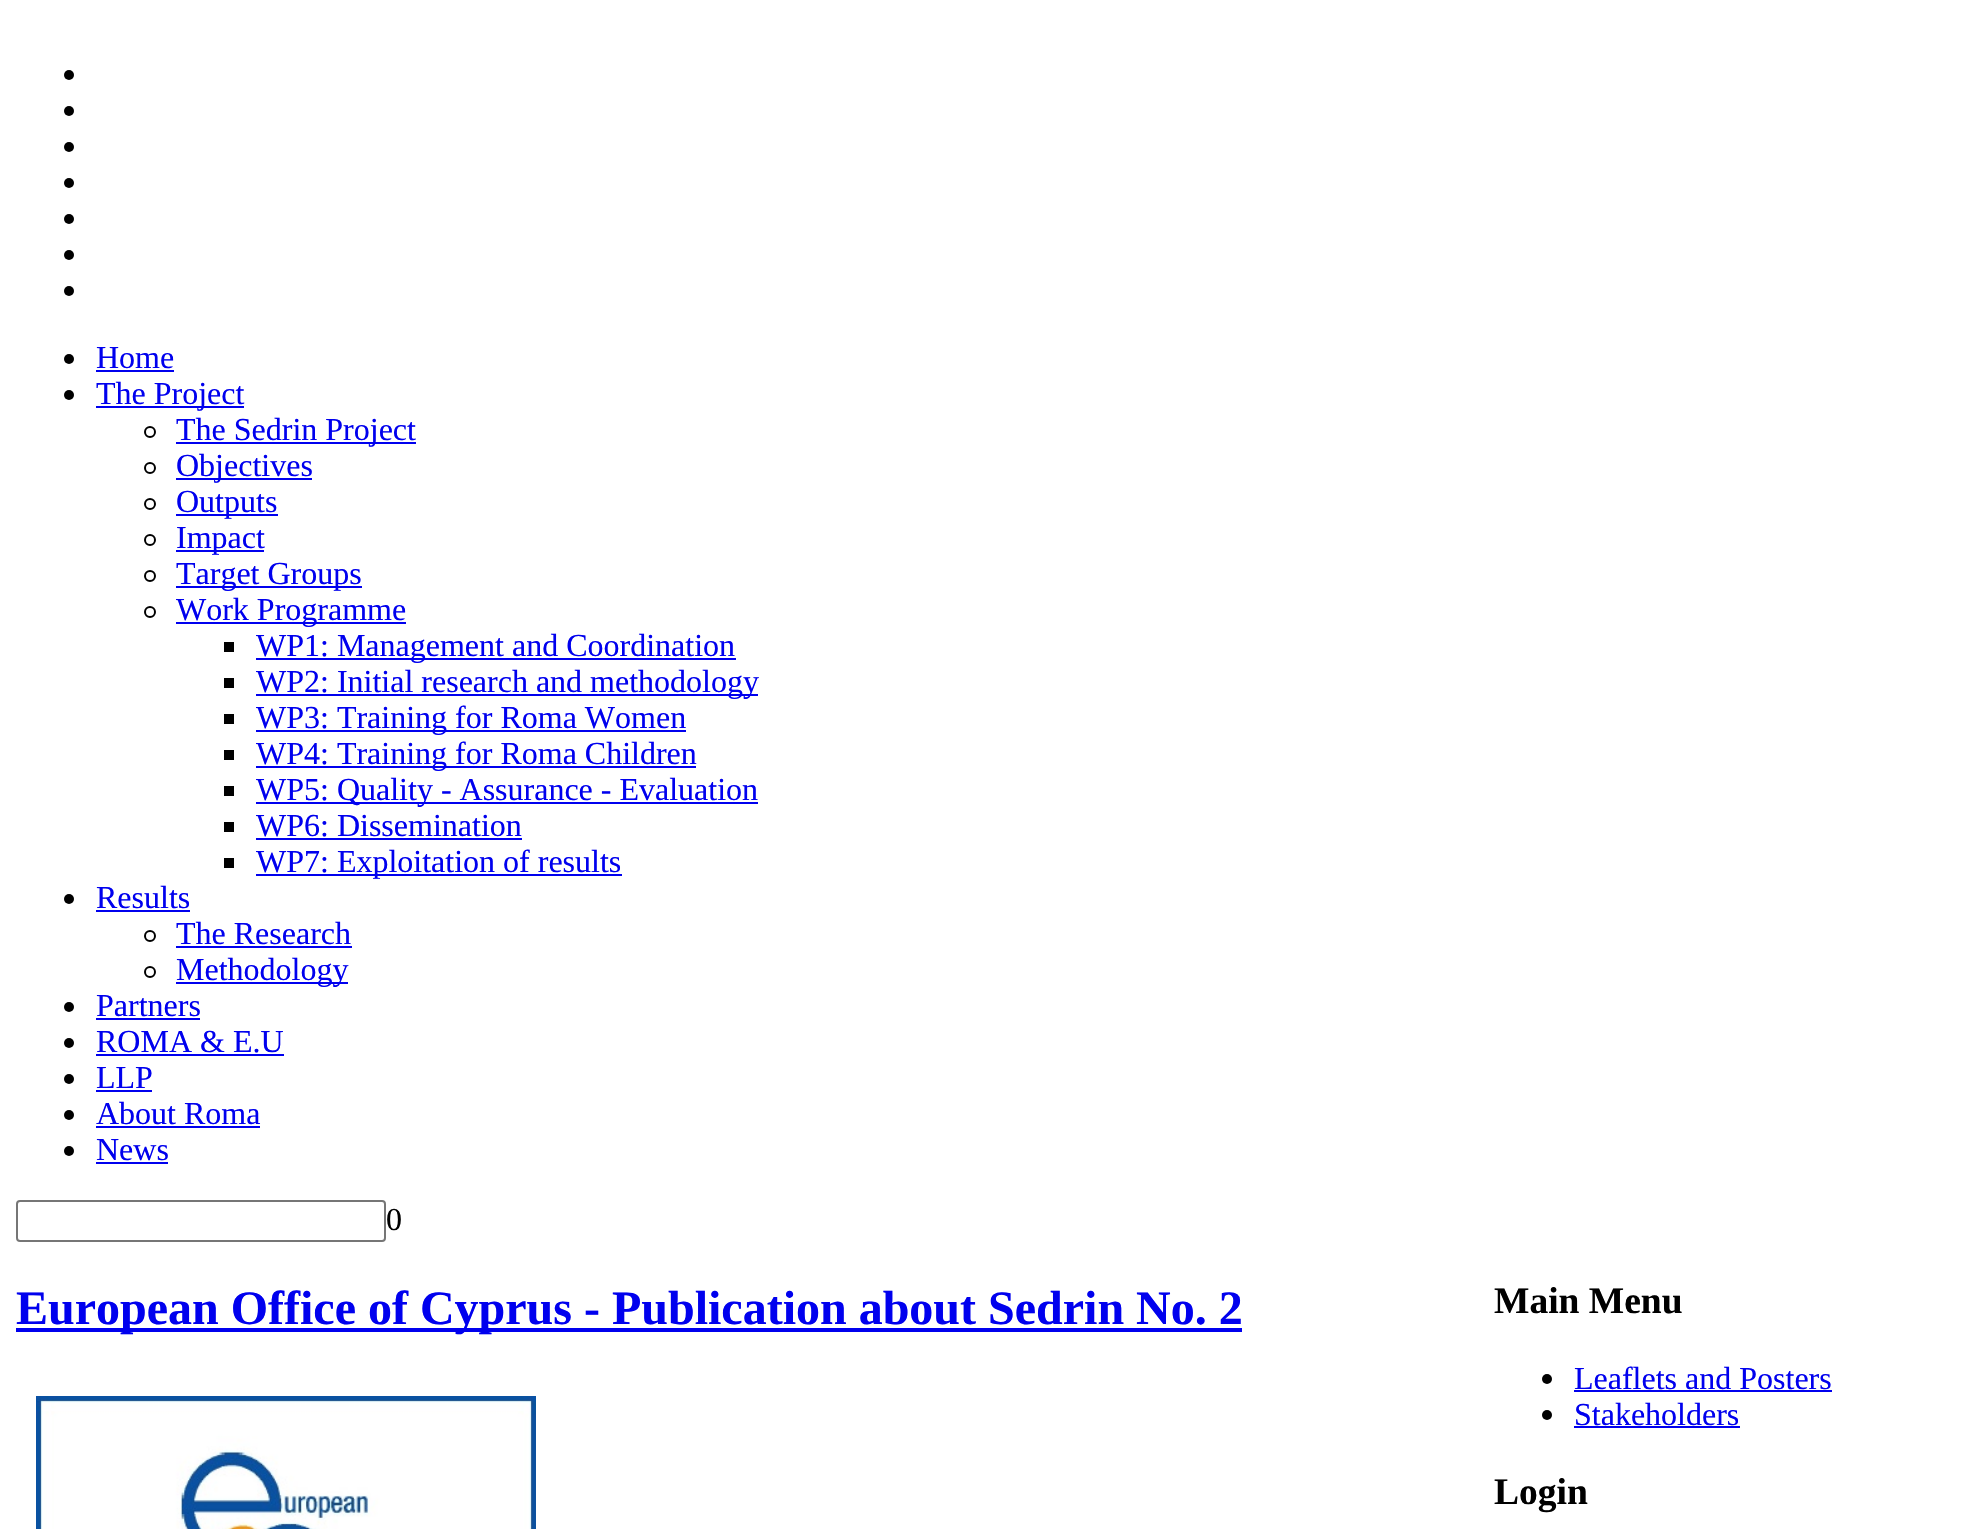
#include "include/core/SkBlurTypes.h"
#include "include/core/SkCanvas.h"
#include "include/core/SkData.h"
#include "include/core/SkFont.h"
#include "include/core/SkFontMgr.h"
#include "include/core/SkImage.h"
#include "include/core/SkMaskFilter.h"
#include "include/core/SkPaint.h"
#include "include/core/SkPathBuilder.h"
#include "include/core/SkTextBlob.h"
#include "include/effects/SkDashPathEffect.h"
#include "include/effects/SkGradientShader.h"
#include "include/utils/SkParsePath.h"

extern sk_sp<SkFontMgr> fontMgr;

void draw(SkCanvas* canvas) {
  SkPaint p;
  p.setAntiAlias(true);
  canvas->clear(SK_ColorWHITE);
  p.setColor(SK_ColorBLACK);
  canvas->drawCircle(69, 75, 5, p);
  canvas->drawCircle(69, 111, 5, p);
  canvas->drawCircle(69, 147, 5, p);
  canvas->drawCircle(69, 183, 5, p);
  canvas->drawCircle(69, 219, 5, p);
  canvas->drawCircle(69, 255, 5, p);
  canvas->drawCircle(69, 291, 5, p);
  canvas->drawCircle(69, 359, 5, p);
  p.setColor(SkColorSetRGB(0, 0, 238));
  canvas->drawRect(SkRect::MakeLTRB(96, 370, 174, 372), p);
  p.setColor(SK_ColorBLACK);
  canvas->drawCircle(69, 395, 5, p);
  p.setColor(SkColorSetRGB(0, 0, 238));
  canvas->drawRect(SkRect::MakeLTRB(96, 406, 244, 408), p);
  p.setStyle(SkPaint::kStroke_Style);
  p.setStrokeWidth(2);
  p.setColor(SK_ColorBLACK);
  canvas->drawCircle(150, 432, 5, p);
  p.setStyle(SkPaint::kFill_Style);
  p.setColor(SkColorSetRGB(0, 0, 238));
  canvas->drawRect(SkRect::MakeLTRB(176, 442, 416, 444), p);
  p.setStyle(SkPaint::kStroke_Style);
  p.setColor(SK_ColorBLACK);
  canvas->drawCircle(150, 468, 5, p);
  p.setStyle(SkPaint::kFill_Style);
  p.setColor(SkColorSetRGB(0, 0, 238));
  canvas->drawRect(SkRect::MakeLTRB(176, 478, 312, 480), p);
  p.setStyle(SkPaint::kStroke_Style);
  p.setColor(SK_ColorBLACK);
  canvas->drawCircle(150, 504, 5, p);
  p.setStyle(SkPaint::kFill_Style);
  p.setColor(SkColorSetRGB(0, 0, 238));
  canvas->drawRect(SkRect::MakeLTRB(176, 514, 278, 516), p);
  p.setStyle(SkPaint::kStroke_Style);
  p.setColor(SK_ColorBLACK);
  canvas->drawCircle(150, 540, 5, p);
  p.setStyle(SkPaint::kFill_Style);
  p.setColor(SkColorSetRGB(0, 0, 238));
  canvas->drawRect(SkRect::MakeLTRB(176, 550, 264, 552), p);
  p.setStyle(SkPaint::kStroke_Style);
  p.setColor(SK_ColorBLACK);
  canvas->drawCircle(150, 576, 5, p);
  p.setStyle(SkPaint::kFill_Style);
  p.setColor(SkColorSetRGB(0, 0, 238));
  canvas->drawRect(SkRect::MakeLTRB(176, 586, 362, 588), p);
  p.setStyle(SkPaint::kStroke_Style);
  p.setColor(SK_ColorBLACK);
  canvas->drawCircle(150, 612, 5, p);
  p.setStyle(SkPaint::kFill_Style);
  p.setColor(SkColorSetRGB(0, 0, 238));
  canvas->drawRect(SkRect::MakeLTRB(176, 622, 406, 624), p);
  p.setColor(SK_ColorBLACK);
  canvas->drawRect(SkRect::MakeLTRB(224, 642, 234, 652), p);
  p.setColor(SkColorSetRGB(0, 0, 238));
  canvas->drawRect(SkRect::MakeLTRB(256, 658, 736, 660), p);
  p.setColor(SK_ColorBLACK);
  canvas->drawRect(SkRect::MakeLTRB(224, 678, 234, 688), p);
  p.setColor(SkColorSetRGB(0, 0, 238));
  canvas->drawRect(SkRect::MakeLTRB(256, 694, 758, 696), p);
  p.setColor(SK_ColorBLACK);
  canvas->drawRect(SkRect::MakeLTRB(224, 714, 234, 724), p);
  p.setColor(SkColorSetRGB(0, 0, 238));
  canvas->drawRect(SkRect::MakeLTRB(256, 730, 686, 732), p);
  p.setColor(SK_ColorBLACK);
  canvas->drawRect(SkRect::MakeLTRB(224, 750, 234, 760), p);
  p.setColor(SkColorSetRGB(0, 0, 238));
  canvas->drawRect(SkRect::MakeLTRB(256, 766, 696, 768), p);
  p.setColor(SK_ColorBLACK);
  canvas->drawRect(SkRect::MakeLTRB(224, 786, 234, 796), p);
  p.setColor(SkColorSetRGB(0, 0, 238));
  canvas->drawRect(SkRect::MakeLTRB(256, 802, 758, 804), p);
  p.setColor(SK_ColorBLACK);
  canvas->drawRect(SkRect::MakeLTRB(224, 822, 234, 832), p);
  p.setColor(SkColorSetRGB(0, 0, 238));
  canvas->drawRect(SkRect::MakeLTRB(256, 838, 522, 840), p);
  p.setColor(SK_ColorBLACK);
  canvas->drawRect(SkRect::MakeLTRB(224, 858, 234, 868), p);
  p.setColor(SkColorSetRGB(0, 0, 238));
  canvas->drawRect(SkRect::MakeLTRB(256, 874, 622, 876), p);
  p.setColor(SK_ColorBLACK);
  canvas->drawCircle(69, 899, 5, p);
  p.setColor(SkColorSetRGB(0, 0, 238));
  canvas->drawRect(SkRect::MakeLTRB(96, 910, 190, 912), p);
  p.setStyle(SkPaint::kStroke_Style);
  p.setColor(SK_ColorBLACK);
  canvas->drawCircle(150, 936, 5, p);
  p.setStyle(SkPaint::kFill_Style);
  p.setColor(SkColorSetRGB(0, 0, 238));
  canvas->drawRect(SkRect::MakeLTRB(176, 946, 352, 948), p);
  p.setStyle(SkPaint::kStroke_Style);
  p.setColor(SK_ColorBLACK);
  canvas->drawCircle(150, 972, 5, p);
  p.setStyle(SkPaint::kFill_Style);
  p.setColor(SkColorSetRGB(0, 0, 238));
  canvas->drawRect(SkRect::MakeLTRB(176, 982, 348, 984), p);
  p.setColor(SK_ColorBLACK);
  canvas->drawCircle(69, 1007, 5, p);
  p.setColor(SkColorSetRGB(0, 0, 238));
  canvas->drawRect(SkRect::MakeLTRB(96, 1018, 200, 1020), p);
  p.setColor(SK_ColorBLACK);
  canvas->drawCircle(69, 1043, 5, p);
  p.setColor(SkColorSetRGB(0, 0, 238));
  canvas->drawRect(SkRect::MakeLTRB(96, 1054, 284, 1056), p);
  p.setColor(SK_ColorBLACK);
  canvas->drawCircle(69, 1079, 5, p);
  p.setColor(SkColorSetRGB(0, 0, 238));
  canvas->drawRect(SkRect::MakeLTRB(96, 1090, 152, 1092), p);
  p.setColor(SK_ColorBLACK);
  canvas->drawCircle(69, 1115, 5, p);
  p.setColor(SkColorSetRGB(0, 0, 238));
  canvas->drawRect(SkRect::MakeLTRB(96, 1126, 260, 1128), p);
  p.setColor(SK_ColorBLACK);
  canvas->drawCircle(69, 1151, 5, p);
  p.setColor(SkColorSetRGB(0, 0, 238));
  canvas->drawRect(SkRect::MakeLTRB(96, 1162, 168, 1164), p);
  p.setStyle(SkPaint::kStroke_Style);
  p.setColor(SkColorSetRGB(118, 118, 118));
  canvas->drawRoundRect(SkRect::MakeLTRB(17, 1201, 385, 1241), 3, 3, p);
  p.setStyle(SkPaint::kFill_Style);
  p.setColor(SkColorSetRGB(0, 0, 238));
  canvas->drawRect(SkRect::MakeLTRB(16, 1328, 1242, 1332), p);
  canvas->drawImageRect(SkImages::DeferredFromEncodedData(SkData::MakeFromFileName("images/1.png")), SkRect::MakeLTRB(36, 1396, 536, 1529), SkSamplingOptions());
  p.setColor(SK_ColorBLACK);
  canvas->drawCircle(1547, 1379, 5, p);
  p.setColor(SkColorSetRGB(0, 0, 238));
  canvas->drawRect(SkRect::MakeLTRB(1574, 1390, 1832, 1392), p);
  p.setColor(SK_ColorBLACK);
  canvas->drawCircle(1547, 1415, 5, p);
  p.setColor(SkColorSetRGB(0, 0, 238));
  canvas->drawRect(SkRect::MakeLTRB(1574, 1426, 1740, 1428), p);
  SkFont font1(fontMgr->matchFamilyStyle("Liberation Serif", SkFontStyle::Normal()), 32);
  font1.setSubpixel(true);
  canvas->drawString("Home", 96, 368, font1, p);
  canvas->drawString("The Project", 96, 404, font1, p);
  canvas->drawString("The Sedrin Project", 176, 440, font1, p);
  canvas->drawString("Objectives", 176, 476, font1, p);
  canvas->drawString("Outputs", 176, 512, font1, p);
  canvas->drawString("Impact", 176, 548, font1, p);
  canvas->drawString("Target Groups", 176, 584, font1, p);
  canvas->drawString("Work Programme", 176, 620, font1, p);
  canvas->drawString("WP1: Management and Coordination", 256, 656, font1, p);
  canvas->drawString("WP2: Initial research and methodology", 256, 692, font1, p);
  canvas->drawString("WP3: Training for Roma Women", 256, 728, font1, p);
  canvas->drawString("WP4: Training for Roma Children", 256, 764, font1, p);
  canvas->drawString("WP5: Quality - Assurance - Evaluation", 256, 800, font1, p);
  canvas->drawString("WP6: Dissemination", 256, 836, font1, p);
  canvas->drawString("WP7: Exploitation of results", 256, 872, font1, p);
  canvas->drawString("Results", 96, 908, font1, p);
  canvas->drawString("The Research", 176, 944, font1, p);
  canvas->drawString("Methodology", 176, 980, font1, p);
  canvas->drawString("Partners", 96, 1016, font1, p);
  canvas->drawString("ROMA & E.U", 96, 1052, font1, p);
  canvas->drawString("LLP", 96, 1088, font1, p);
  canvas->drawString("About Roma", 96, 1124, font1, p);
  canvas->drawString("News", 96, 1160, font1, p);
  p.setColor(SK_ColorBLACK);
  canvas->drawString("0", 386, 1230, font1, p);
  SkFont font2(fontMgr->matchFamilyStyle("Liberation Serif", SkFontStyle::Bold()), 48);
  font2.setSubpixel(true);
  p.setColor(SkColorSetRGB(0, 0, 238));
  canvas->drawString("European Office of Cyprus - Publication about Sedrin No. 2", 16, 1324, font2, p);
  SkFont font3(fontMgr->matchFamilyStyle("Liberation Serif", SkFontStyle::Bold()), 37.5f);
  font3.setSubpixel(true);
  p.setColor(SK_ColorBLACK);
  canvas->drawString("Main Menu", 1494, 1313, font3, p);
  p.setColor(SkColorSetRGB(0, 0, 238));
  canvas->drawString("Leaflets and Posters", 1574, 1389, font1, p);
  canvas->drawString("Stakeholders", 1574, 1425, font1, p);
  p.setColor(SK_ColorBLACK);
  canvas->drawString("Login", 1494, 1504, font3, p);
}
